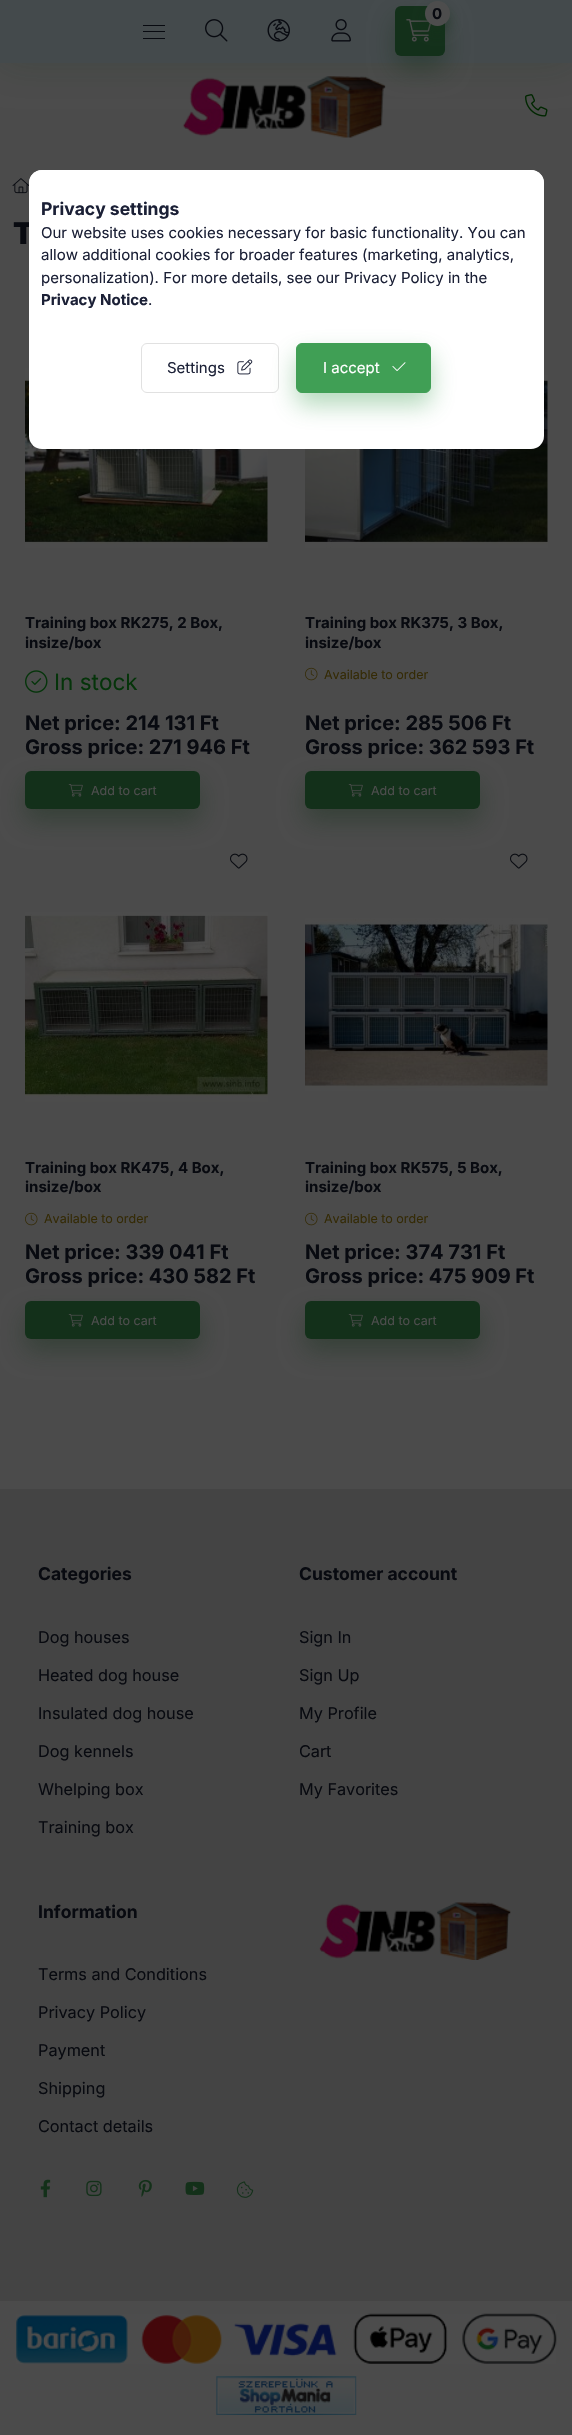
#include "include/core/SkBlurTypes.h"
#include "include/core/SkCanvas.h"
#include "include/core/SkData.h"
#include "include/core/SkFont.h"
#include "include/core/SkFontMgr.h"
#include "include/core/SkImage.h"
#include "include/core/SkMaskFilter.h"
#include "include/core/SkPaint.h"
#include "include/core/SkPathBuilder.h"
#include "include/core/SkTextBlob.h"
#include "include/effects/SkDashPathEffect.h"
#include "include/effects/SkGradientShader.h"
#include "include/utils/SkParsePath.h"

extern sk_sp<SkFontMgr> fontMgr;

void draw(SkCanvas* canvas) {
  SkPaint p;
  p.setAntiAlias(true);
  canvas->clear(SkColorSetRGB(75, 75, 75));
  canvas->drawImageRect(SkImages::DeferredFromEncodedData(SkData::MakeFromFileName("images/5.png")), SkRect::MakeLTRB(182, 76, 386, 138), SkSamplingOptions());
  canvas->drawImageRect(SkImages::DeferredFromEncodedData(SkData::MakeFromFileName("images/6.png")), SkRect::MakeLTRB(525, 94, 548, 117), SkSamplingOptions());
  p.setColor(SkColorSetARGB(51, 19, 48, 26));
  p.setMaskFilter(SkMaskFilter::MakeBlur(kNormal_SkBlurStyle, 19));
  canvas->drawRect(SkRect::MakeLTRB(0, 0, 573, 63), p);
  p.setMaskFilter(nullptr);
  p.setColor(SkColorSetRGB(68, 74, 76));
  canvas->drawRect(SkRect::MakeLTRB(0, 0, 572, 63), p);
  p.setColor(SkColorSetARGB(102, 19, 48, 26));
  p.setMaskFilter(SkMaskFilter::MakeBlur(kNormal_SkBlurStyle, 12.5f));
  canvas->drawRoundRect(SkRect::MakeLTRB(395, 19, 445, 69), 6, 6, p);
  p.setMaskFilter(nullptr);
  p.setColor(SkColorSetRGB(19, 48, 26));
  canvas->drawRoundRect(SkRect::MakeLTRB(395, 6, 445, 56), 6, 6, p);
  canvas->drawImageRect(SkImages::DeferredFromEncodedData(SkData::MakeFromFileName("images/1.png")), SkRect::MakeLTRB(406, 19, 431, 42), SkSamplingOptions());
  p.setColor(SkColorSetARGB(102, 19, 48, 26));
  p.setMaskFilter(SkMaskFilter::MakeBlur(kNormal_SkBlurStyle, 6));
  canvas->drawRoundRect(SkRect::MakeLTRB(425, 8, 450, 33), 12.5f, 12.5f, p);
  p.setMaskFilter(nullptr);
  p.setColor(SkColorSetRGB(77, 77, 77));
  canvas->drawCircle(437.5f, 13.5f, 12.5f, p);
  p.setColor(SkColorSetRGB(8, 10, 16));
  canvas->drawRect(SkRect::MakeLTRB(143, 25, 165, 26), p);
  canvas->drawRect(SkRect::MakeLTRB(143, 31, 165, 32), p);
  canvas->drawRect(SkRect::MakeLTRB(143, 38, 165, 39), p);
  canvas->drawImageRect(SkImages::DeferredFromEncodedData(SkData::MakeFromFileName("images/2.png")), SkRect::MakeLTRB(205, 19, 228, 42), SkSamplingOptions());
  canvas->drawImageRect(SkImages::DeferredFromEncodedData(SkData::MakeFromFileName("images/3.png")), SkRect::MakeLTRB(267, 19, 290, 42), SkSamplingOptions());
  canvas->drawImageRect(SkImages::DeferredFromEncodedData(SkData::MakeFromFileName("images/4.png")), SkRect::MakeLTRB(331, 19, 351, 42), SkSamplingOptions());
  canvas->drawImageRect(SkImages::DeferredFromEncodedData(SkData::MakeFromFileName("images/7.png")), SkRect::MakeLTRB(12, 178, 29, 194), SkSamplingOptions());
  canvas->drawImageRect(SkImages::DeferredFromEncodedData(SkData::MakeFromFileName("images/8.png")), SkRect::MakeLTRB(25, 368, 268, 548), SkSamplingOptions());
  canvas->drawImageRect(SkImages::DeferredFromEncodedData(SkData::MakeFromFileName("images/9.png")), SkRect::MakeLTRB(25, 670, 48, 693), SkSamplingOptions());
  p.setColor(SkColorSetARGB(102, 19, 48, 26));
  p.setMaskFilter(SkMaskFilter::MakeBlur(kNormal_SkBlurStyle, 12.5f));
  canvas->drawRoundRect(SkRect::MakeLTRB(25, 784, 200, 821), 6, 6, p);
  p.setMaskFilter(nullptr);
  p.setColor(SkColorSetRGB(19, 48, 26));
  canvas->drawRoundRect(SkRect::MakeLTRB(25, 771, 200, 809), 6, 6, p);
  canvas->drawImageRect(SkImages::DeferredFromEncodedData(SkData::MakeFromFileName("images/10.png")), SkRect::MakeLTRB(68, 784, 83, 797), SkSamplingOptions());
  canvas->drawImageRect(SkImages::DeferredFromEncodedData(SkData::MakeFromFileName("images/11.png")), SkRect::MakeLTRB(305, 375, 548, 548), SkSamplingOptions());
  canvas->drawImageRect(SkImages::DeferredFromEncodedData(SkData::MakeFromFileName("images/12.png")), SkRect::MakeLTRB(305, 667, 318, 681), SkSamplingOptions());
  p.setColor(SkColorSetARGB(102, 19, 48, 26));
  p.setMaskFilter(SkMaskFilter::MakeBlur(kNormal_SkBlurStyle, 12.5f));
  canvas->drawRoundRect(SkRect::MakeLTRB(305, 784, 480, 821), 6, 6, p);
  p.setMaskFilter(nullptr);
  p.setColor(SkColorSetRGB(19, 48, 26));
  canvas->drawRoundRect(SkRect::MakeLTRB(305, 771, 480, 809), 6, 6, p);
  canvas->drawImageRect(SkImages::DeferredFromEncodedData(SkData::MakeFromFileName("images/10.png")), SkRect::MakeLTRB(348, 784, 363, 797), SkSamplingOptions());
  canvas->drawImageRect(SkImages::DeferredFromEncodedData(SkData::MakeFromFileName("images/13.png")), SkRect::MakeLTRB(230, 853, 248, 869), SkSamplingOptions());
  canvas->drawImageRect(SkImages::DeferredFromEncodedData(SkData::MakeFromFileName("images/14.png")), SkRect::MakeLTRB(25, 912, 268, 1102), SkSamplingOptions());
  canvas->drawImageRect(SkImages::DeferredFromEncodedData(SkData::MakeFromFileName("images/12.png")), SkRect::MakeLTRB(25, 1212, 38, 1226), SkSamplingOptions());
  p.setColor(SkColorSetARGB(102, 19, 48, 26));
  p.setMaskFilter(SkMaskFilter::MakeBlur(kNormal_SkBlurStyle, 12.5f));
  canvas->drawRoundRect(SkRect::MakeLTRB(25, 1314, 200, 1351), 6, 6, p);
  p.setMaskFilter(nullptr);
  p.setColor(SkColorSetRGB(19, 48, 26));
  canvas->drawRoundRect(SkRect::MakeLTRB(25, 1301, 200, 1339), 6, 6, p);
  canvas->drawImageRect(SkImages::DeferredFromEncodedData(SkData::MakeFromFileName("images/10.png")), SkRect::MakeLTRB(68, 1314, 83, 1327), SkSamplingOptions());
  canvas->drawImageRect(SkImages::DeferredFromEncodedData(SkData::MakeFromFileName("images/13.png")), SkRect::MakeLTRB(510, 853, 528, 869), SkSamplingOptions());
  canvas->drawImageRect(SkImages::DeferredFromEncodedData(SkData::MakeFromFileName("images/15.png")), SkRect::MakeLTRB(305, 918, 548, 1091), SkSamplingOptions());
  canvas->drawImageRect(SkImages::DeferredFromEncodedData(SkData::MakeFromFileName("images/12.png")), SkRect::MakeLTRB(305, 1212, 318, 1226), SkSamplingOptions());
  p.setColor(SkColorSetARGB(102, 19, 48, 26));
  p.setMaskFilter(SkMaskFilter::MakeBlur(kNormal_SkBlurStyle, 12.5f));
  canvas->drawRoundRect(SkRect::MakeLTRB(305, 1314, 480, 1351), 6, 6, p);
  p.setMaskFilter(nullptr);
  p.setColor(SkColorSetRGB(19, 48, 26));
  canvas->drawRoundRect(SkRect::MakeLTRB(305, 1301, 480, 1339), 6, 6, p);
  canvas->drawImageRect(SkImages::DeferredFromEncodedData(SkData::MakeFromFileName("images/10.png")), SkRect::MakeLTRB(348, 1314, 363, 1327), SkSamplingOptions());
  p.setColor(SkColorSetRGB(68, 68, 68));
  canvas->drawRect(SkRect::MakeLTRB(0, 1489, 572, 2301), p);
  canvas->drawImageRect(SkImages::DeferredFromEncodedData(SkData::MakeFromFileName("images/16.png")), SkRect::MakeLTRB(40, 2179, 51, 2198), SkSamplingOptions());
  canvas->drawImageRect(SkImages::DeferredFromEncodedData(SkData::MakeFromFileName("images/17.png")), SkRect::MakeLTRB(86, 2180, 102, 2197), SkSamplingOptions());
  canvas->drawImageRect(SkImages::DeferredFromEncodedData(SkData::MakeFromFileName("images/18.png")), SkRect::MakeLTRB(138, 2179, 152, 2197), SkSamplingOptions());
  canvas->drawImageRect(SkImages::DeferredFromEncodedData(SkData::MakeFromFileName("images/19.png")), SkRect::MakeLTRB(185, 2181, 205, 2195), SkSamplingOptions());
  canvas->drawImageRect(SkImages::DeferredFromEncodedData(SkData::MakeFromFileName("images/20.png")), SkRect::MakeLTRB(236, 2181, 254, 2198), SkSamplingOptions());
  canvas->drawImageRect(SkImages::DeferredFromEncodedData(SkData::MakeFromFileName("images/21.png")), SkRect::MakeLTRB(319, 1902, 511, 1960), SkSamplingOptions());
  canvas->drawImageRect(SkImages::DeferredFromEncodedData(SkData::MakeFromFileName("images/22.png")), SkRect::MakeLTRB(16, 2313, 557, 2364), SkSamplingOptions());
  canvas->drawImageRect(SkImages::DeferredFromEncodedData(SkData::MakeFromFileName("images/23.png")), SkRect::MakeLTRB(216, 2376, 357, 2415), SkSamplingOptions());
  SkFont font1(fontMgr->matchFamilyStyle("Inter", SkFontStyle::Bold()), 15);
  font1.setSubpixel(true);
  p.setColor(SkColorSetRGB(8, 10, 16));
  canvas->drawString("0", 432, 19, font1, p);
  SkFont font2(fontMgr->matchFamilyStyle("Inter", SkFontStyle(900, SkFontStyle::kNormal_Width, SkFontStyle::kUpright_Slant)), 30);
  font2.setSubpixel(true);
  canvas->drawString("T", 13, 244, font2, p);
  canvas->drawString("Training box RK275, 2 Box,", 25, 628, font1, p);
  canvas->drawString("insize/box", 25, 648, font1, p);
  SkFont font3(fontMgr->matchFamilyStyle("Inter", SkFontStyle::Normal()), 22.5f);
  font3.setSubpixel(true);
  p.setColor(SkColorSetRGB(5, 52, 10));
  canvas->drawString("In stock", 54, 690, font3, p);
  SkFont font4(fontMgr->matchFamilyStyle("Inter", SkFontStyle::Bold()), 20);
  font4.setSubpixel(true);
  p.setColor(SkColorSetRGB(8, 10, 16));
  canvas->drawString("Net price: 214 131 Ft", 25, 730, font4, p);
  canvas->drawString("Gross price: 271 946 Ft", 25, 754, font4, p);
  SkFont font5(fontMgr->matchFamilyStyle("Inter", SkFontStyle::Normal()), 12.5f);
  font5.setSubpixel(true);
  p.setColor(SkColorSetRGB(77, 77, 77));
  canvas->drawString("Add to cart", 91, 795, font5, p);
  p.setColor(SkColorSetRGB(8, 10, 16));
  canvas->drawString("Training box RK375, 3 Box,", 305, 628, font1, p);
  canvas->drawString("insize/box", 305, 648, font1, p);
  p.setColor(SkColorSetRGB(52, 42, 5));
  canvas->drawString("Available to order", 324, 679, font5, p);
  p.setColor(SkColorSetRGB(8, 10, 16));
  canvas->drawString("Net price: 285 506 Ft", 305, 730, font4, p);
  canvas->drawString("Gross price: 362 593 Ft", 305, 754, font4, p);
  p.setColor(SkColorSetRGB(77, 77, 77));
  canvas->drawString("Add to cart", 371, 795, font5, p);
  p.setColor(SkColorSetRGB(8, 10, 16));
  canvas->drawString("Training box RK475, 4 Box,", 25, 1173, font1, p);
  canvas->drawString("insize/box", 25, 1192, font1, p);
  p.setColor(SkColorSetRGB(52, 42, 5));
  canvas->drawString("Available to order", 44, 1223, font5, p);
  p.setColor(SkColorSetRGB(8, 10, 16));
  canvas->drawString("Net price: 339 041 Ft", 25, 1259, font4, p);
  canvas->drawString("Gross price: 430 582 Ft", 25, 1283, font4, p);
  p.setColor(SkColorSetRGB(77, 77, 77));
  canvas->drawString("Add to cart", 91, 1325, font5, p);
  p.setColor(SkColorSetRGB(8, 10, 16));
  canvas->drawString("Training box RK575, 5 Box,", 305, 1173, font1, p);
  canvas->drawString("insize/box", 305, 1192, font1, p);
  p.setColor(SkColorSetRGB(52, 42, 5));
  canvas->drawString("Available to order", 324, 1223, font5, p);
  p.setColor(SkColorSetRGB(8, 10, 16));
  canvas->drawString("Net price: 374 731 Ft", 305, 1259, font4, p);
  canvas->drawString("Gross price: 475 909 Ft", 305, 1283, font4, p);
  p.setColor(SkColorSetRGB(77, 77, 77));
  canvas->drawString("Add to cart", 371, 1325, font5, p);
  SkFont font6(fontMgr->matchFamilyStyle("Inter", SkFontStyle::Bold()), 17.5f);
  font6.setSubpixel(true);
  p.setColor(SkColorSetRGB(8, 10, 16));
  canvas->drawString("Categories", 38, 1580, font6, p);
  SkFont font7(fontMgr->matchFamilyStyle("Inter", SkFontStyle::Normal()), 16.25f);
  font7.setSubpixel(true);
  canvas->drawString("Dog houses", 38, 1643, font7, p);
  canvas->drawString("Heated dog house", 38, 1681, font7, p);
  canvas->drawString("Insulated dog house", 38, 1719, font7, p);
  canvas->drawString("Dog kennels", 38, 1757, font7, p);
  canvas->drawString("Whelping box", 38, 1795, font7, p);
  canvas->drawString("Training box", 38, 1833, font7, p);
  canvas->drawString("Customer account", 299, 1580, font6, p);
  canvas->drawString("Sign In", 299, 1643, font7, p);
  canvas->drawString("Sign Up", 299, 1681, font7, p);
  canvas->drawString("My Profile", 299, 1719, font7, p);
  canvas->drawString("Cart", 299, 1757, font7, p);
  canvas->drawString("My Favorites", 299, 1795, font7, p);
  canvas->drawString("Information", 38, 1918, font6, p);
  canvas->drawString("Terms and Conditions", 38, 1980, font7, p);
  canvas->drawString("Privacy Policy", 38, 2018, font7, p);
  canvas->drawString("Payment", 38, 2056, font7, p);
  canvas->drawString("Shipping", 38, 2094, font7, p);
  canvas->drawString("Contact details", 38, 2132, font7, p);
  p.setColor(SK_ColorWHITE);
  canvas->drawRoundRect(SkRect::MakeLTRB(29, 170, 544, 449), 13, 13, p);
  canvas->drawPath(SkPathBuilder().moveTo(42, 170).lineTo(531, 170).cubicTo(538, 170, 544, 176, 544, 183).lineTo(544, 424).lineTo(29, 424).lineTo(29, 183).cubicTo(29, 176, 35, 170, 42, 170).close().detach(), p);
  p.setColor(SkColorSetRGB(27, 32, 54));
  canvas->drawString("Privacy settings", 41, 215, font6, p);
  SkFont font8(fontMgr->matchFamilyStyle("Inter", SkFontStyle::Normal()), 15);
  font8.setSubpixel(true);
  canvas->drawString("Our website uses cookies necessary for basic functionality. You can", 41, 238, font8, p);
  canvas->drawString("allow additional cookies for broader features (marketing, analytics,", 41, 260, font8, p);
  canvas->drawString("personalization). For more details, see our Privacy Policy in the", 41, 283, font8, p);
  canvas->drawString("Privacy Notice", 41, 305, font1, p);
  canvas->drawString(".", 148, 305, font8, p);
  p.setStyle(SkPaint::kStroke_Style);
  p.setStrokeWidth(1);
  p.setColor(SkColorSetRGB(225, 225, 225));
  canvas->drawRoundRect(SkRect::MakeLTRB(141.5f, 343.5f, 278.5f, 392.5f), 5.5f, 5.5f, p);
  p.setStyle(SkPaint::kFill_Style);
  p.setColor(SkColorSetRGB(27, 32, 54));
  canvas->drawString("Settings", 167, 373, font8, p);
  canvas->drawImageRect(SkImages::DeferredFromEncodedData(SkData::MakeFromFileName("images/24.png")), SkRect::MakeLTRB(237, 359, 253, 375), SkSamplingOptions());
  p.setColor(SkColorSetARGB(102, 64, 159, 85));
  p.setMaskFilter(SkMaskFilter::MakeBlur(kNormal_SkBlurStyle, 12.5f));
  canvas->drawRoundRect(SkRect::MakeLTRB(296, 355, 431, 405), 6, 6, p);
  p.setMaskFilter(nullptr);
  p.setColor(SkColorSetRGB(64, 159, 85));
  canvas->drawRoundRect(SkRect::MakeLTRB(296.5f, 343.5f, 430.5f, 392.5f), 5.5f, 5.5f, p);
  p.setStyle(SkPaint::kStroke_Style);
  canvas->drawRoundRect(SkRect::MakeLTRB(296.5f, 343.5f, 430.5f, 392.5f), 5.5f, 5.5f, p);
  p.setStyle(SkPaint::kFill_Style);
  p.setColor(SK_ColorWHITE);
  canvas->drawString("I accept", 323, 373, font8, p);
  canvas->drawImageRect(SkImages::DeferredFromEncodedData(SkData::MakeFromFileName("images/25.png")), SkRect::MakeLTRB(392, 362, 406, 371), SkSamplingOptions());
}
